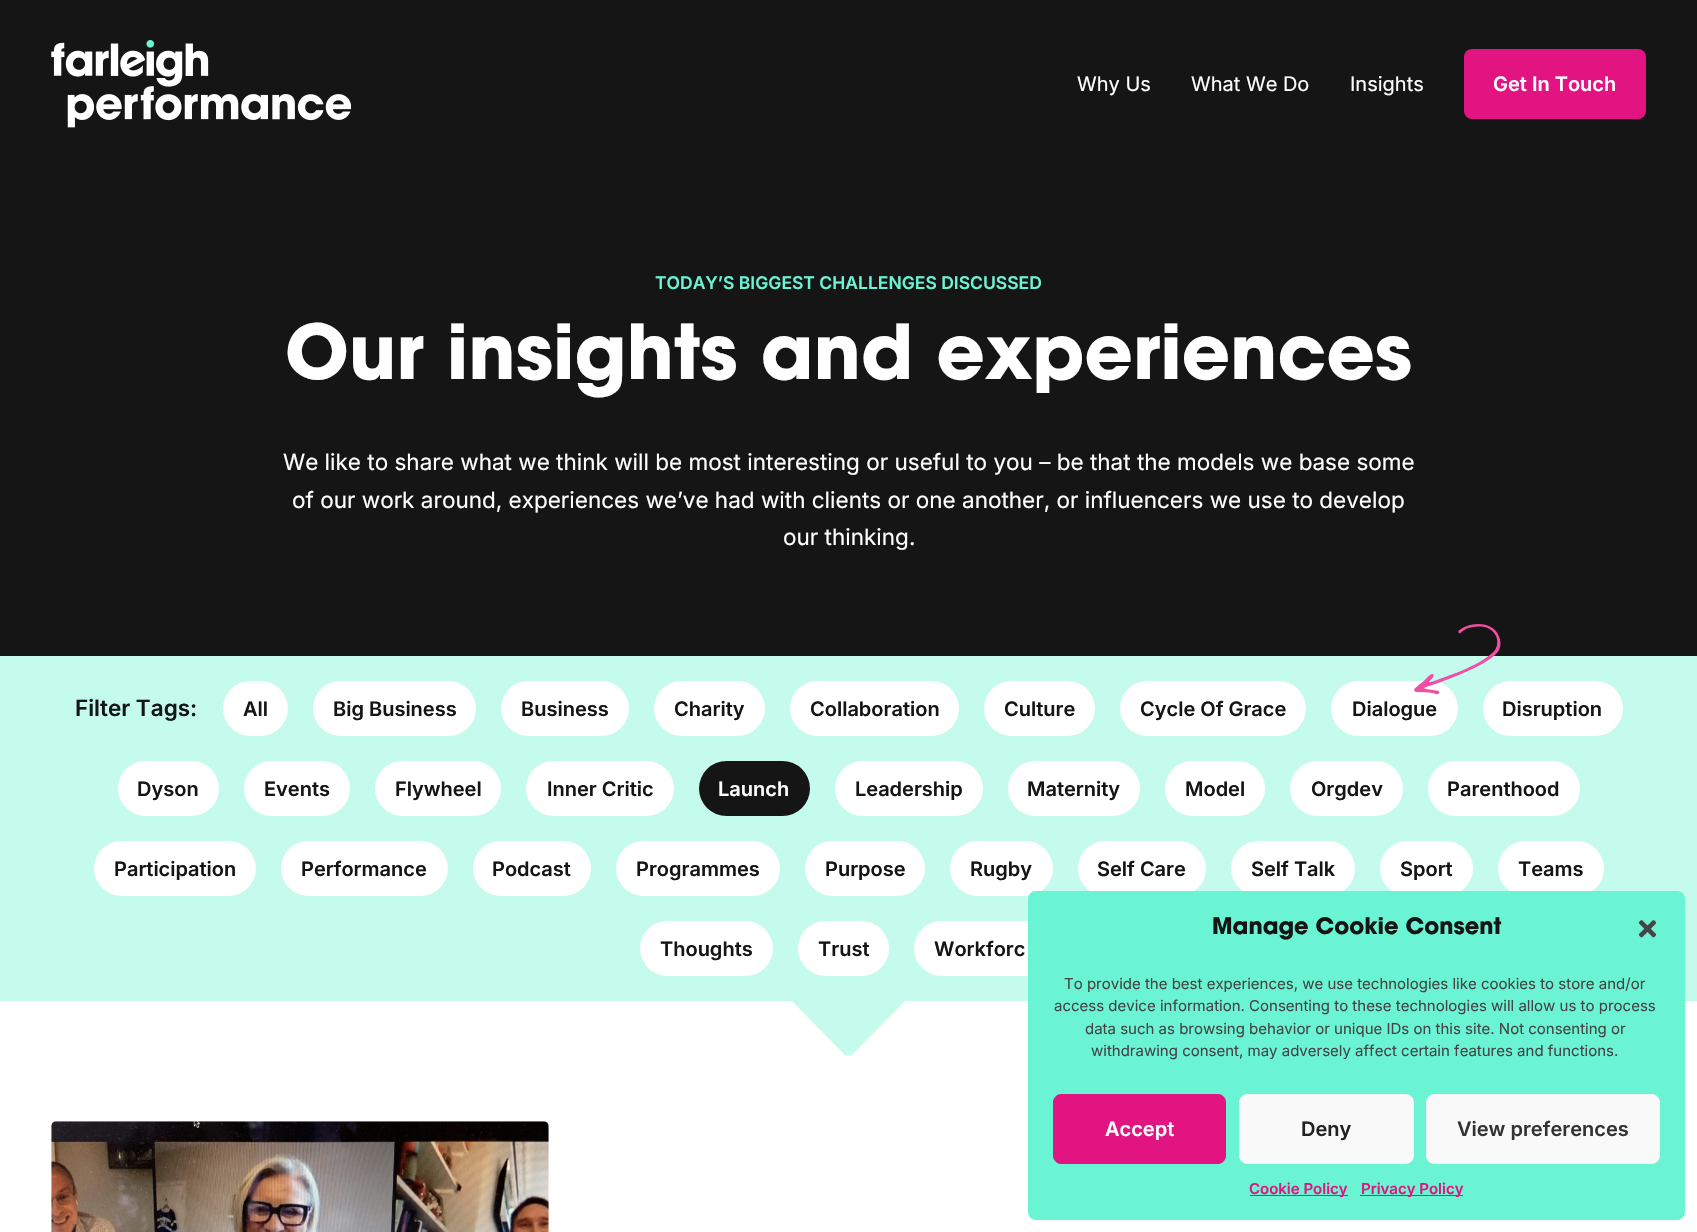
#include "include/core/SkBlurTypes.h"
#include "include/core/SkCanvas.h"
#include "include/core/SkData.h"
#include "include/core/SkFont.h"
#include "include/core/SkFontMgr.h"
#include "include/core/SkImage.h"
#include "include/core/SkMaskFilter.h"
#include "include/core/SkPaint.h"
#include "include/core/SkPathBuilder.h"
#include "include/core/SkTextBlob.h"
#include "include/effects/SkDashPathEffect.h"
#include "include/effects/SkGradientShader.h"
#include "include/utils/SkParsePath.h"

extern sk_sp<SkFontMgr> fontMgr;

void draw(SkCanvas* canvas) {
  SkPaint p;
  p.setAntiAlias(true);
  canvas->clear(SK_ColorWHITE);
  p.setColor(SkColorSetRGB(21, 21, 21));
  canvas->drawRect(SkRect::MakeLTRB(0, 0, 1697, 656), p);
  canvas->drawImageRect(SkImages::DeferredFromEncodedData(SkData::MakeFromFileName("images/1.png")), SkRect::MakeLTRB(51, 40, 351, 128), SkSamplingOptions());
  p.setColor(SkColorSetRGB(225, 20, 129));
  canvas->drawRoundRect(SkRect::MakeLTRB(1464, 49, 1646, 119), 8, 8, p);
  p.setColor(SkColorSetRGB(196, 251, 237));
  canvas->drawRect(SkRect::MakeLTRB(0, 656, 1697, 1001), p);
  p.setColor(SK_ColorWHITE);
  canvas->drawRoundRect(SkRect::MakeLTRB(1331, 681, 1458, 736), 27.5f, 27.5f, p);
  canvas->drawRoundRect(SkRect::MakeLTRB(1483, 681, 1623, 736), 27.5f, 27.5f, p);
  canvas->drawImageRect(SkImages::DeferredFromEncodedData(SkData::MakeFromFileName("images/2.png")), SkRect::MakeLTRB(1414, 624, 1501, 695), SkSamplingOptions());
  canvas->drawRoundRect(SkRect::MakeLTRB(223, 681, 288, 736), 27.5f, 27.5f, p);
  canvas->drawRoundRect(SkRect::MakeLTRB(313, 681, 476, 736), 27.5f, 27.5f, p);
  canvas->drawRoundRect(SkRect::MakeLTRB(501, 681, 629, 736), 27.5f, 27.5f, p);
  canvas->drawRoundRect(SkRect::MakeLTRB(654, 681, 765, 736), 27.5f, 27.5f, p);
  canvas->drawRoundRect(SkRect::MakeLTRB(790, 681, 959, 736), 27.5f, 27.5f, p);
  canvas->drawRoundRect(SkRect::MakeLTRB(984, 681, 1095, 736), 27.5f, 27.5f, p);
  canvas->drawRoundRect(SkRect::MakeLTRB(1120, 681, 1306, 736), 27.5f, 27.5f, p);
  canvas->drawRoundRect(SkRect::MakeLTRB(118, 761, 219, 816), 27.5f, 27.5f, p);
  canvas->drawRoundRect(SkRect::MakeLTRB(244, 761, 350, 816), 27.5f, 27.5f, p);
  canvas->drawRoundRect(SkRect::MakeLTRB(375, 761, 501, 816), 27.5f, 27.5f, p);
  canvas->drawRoundRect(SkRect::MakeLTRB(526, 761, 674, 816), 27.5f, 27.5f, p);
  p.setColor(SkColorSetRGB(21, 21, 21));
  canvas->drawRoundRect(SkRect::MakeLTRB(699, 761, 810, 816), 27.5f, 27.5f, p);
  p.setColor(SK_ColorWHITE);
  canvas->drawRoundRect(SkRect::MakeLTRB(835, 761, 983, 816), 27.5f, 27.5f, p);
  canvas->drawRoundRect(SkRect::MakeLTRB(1008, 761, 1140, 816), 27.5f, 27.5f, p);
  canvas->drawRoundRect(SkRect::MakeLTRB(1165, 761, 1265, 816), 27.5f, 27.5f, p);
  canvas->drawRoundRect(SkRect::MakeLTRB(1290, 761, 1403, 816), 27.5f, 27.5f, p);
  canvas->drawRoundRect(SkRect::MakeLTRB(1428, 761, 1580, 816), 27.5f, 27.5f, p);
  canvas->drawRoundRect(SkRect::MakeLTRB(94, 841, 256, 896), 27.5f, 27.5f, p);
  canvas->drawRoundRect(SkRect::MakeLTRB(281, 841, 448, 896), 27.5f, 27.5f, p);
  canvas->drawRoundRect(SkRect::MakeLTRB(473, 841, 591, 896), 27.5f, 27.5f, p);
  canvas->drawRoundRect(SkRect::MakeLTRB(616, 841, 780, 896), 27.5f, 27.5f, p);
  canvas->drawRoundRect(SkRect::MakeLTRB(805, 841, 925, 896), 27.5f, 27.5f, p);
  canvas->drawRoundRect(SkRect::MakeLTRB(950, 841, 1053, 896), 27.5f, 27.5f, p);
  canvas->drawRoundRect(SkRect::MakeLTRB(1078, 841, 1206, 896), 27.5f, 27.5f, p);
  canvas->drawRoundRect(SkRect::MakeLTRB(1231, 841, 1355, 896), 27.5f, 27.5f, p);
  canvas->drawRoundRect(SkRect::MakeLTRB(1380, 841, 1473, 896), 27.5f, 27.5f, p);
  canvas->drawRoundRect(SkRect::MakeLTRB(1498, 841, 1604, 896), 27.5f, 27.5f, p);
  canvas->drawRoundRect(SkRect::MakeLTRB(640, 921, 773, 976), 27.5f, 27.5f, p);
  p.setColor(SkColorSetRGB(196, 251, 237));
  canvas->drawPath(SkPathBuilder().moveTo(849, 945).lineTo(905, 1001).lineTo(852, 1055).cubicTo(850, 1056, 847, 1056, 845, 1055).lineTo(792, 1001).close().detach(), p);
  p.setColor(SK_ColorWHITE);
  canvas->drawRoundRect(SkRect::MakeLTRB(798, 921, 889, 976), 27.5f, 27.5f, p);
  canvas->drawRoundRect(SkRect::MakeLTRB(914, 921, 1058, 976), 27.5f, 27.5f, p);
  canvas->drawImageRect(SkImages::DeferredFromEncodedData(SkData::MakeFromFileName("images/3.png")), SkRect::MakeLTRB(51, 1121, 549, 1232), SkSamplingOptions());
  p.setColor(SkColorSetRGB(107, 244, 211));
  canvas->drawRoundRect(SkRect::MakeLTRB(1028, 891, 1685, 1220), 8, 8, p);
  canvas->drawImageRect(SkImages::DeferredFromEncodedData(SkData::MakeFromFileName("images/4.png")), SkRect::MakeLTRB(1638, 920, 1657, 938), SkSamplingOptions());
  p.setColor(SkColorSetRGB(225, 20, 129));
  canvas->drawRoundRect(SkRect::MakeLTRB(1053.5f, 1094.5f, 1225.5f, 1163.5f), 7.5f, 7.5f, p);
  p.setStyle(SkPaint::kStroke_Style);
  p.setStrokeWidth(1);
  canvas->drawRoundRect(SkRect::MakeLTRB(1053.5f, 1094.5f, 1225.5f, 1163.5f), 7.5f, 7.5f, p);
  p.setStyle(SkPaint::kFill_Style);
  p.setColor(SkColorSetRGB(249, 249, 249));
  canvas->drawRoundRect(SkRect::MakeLTRB(1239.5f, 1094.5f, 1413.5f, 1163.5f), 7.5f, 7.5f, p);
  p.setStyle(SkPaint::kStroke_Style);
  p.setColor(SkColorSetRGB(242, 242, 242));
  canvas->drawRoundRect(SkRect::MakeLTRB(1239.5f, 1094.5f, 1413.5f, 1163.5f), 7.5f, 7.5f, p);
  p.setStyle(SkPaint::kFill_Style);
  p.setColor(SkColorSetRGB(249, 249, 249));
  canvas->drawRoundRect(SkRect::MakeLTRB(1426.5f, 1094.5f, 1659.5f, 1163.5f), 7.5f, 7.5f, p);
  p.setStyle(SkPaint::kStroke_Style);
  p.setColor(SkColorSetRGB(242, 242, 242));
  canvas->drawRoundRect(SkRect::MakeLTRB(1426.5f, 1094.5f, 1659.5f, 1163.5f), 7.5f, 7.5f, p);
  p.setStyle(SkPaint::kFill_Style);
  p.setColor(SkColorSetRGB(225, 20, 129));
  canvas->drawRect(SkRect::MakeLTRB(1250, 1195, 1348, 1196), p);
  canvas->drawRect(SkRect::MakeLTRB(1360, 1195, 1463, 1196), p);
  SkFont font1(fontMgr->matchFamilyStyle("Inter", SkFontStyle::Normal()), 20);
  font1.setSubpixel(true);
  p.setColor(SK_ColorWHITE);
  canvas->drawString("Why Us", 1077, 91, font1, p);
  canvas->drawString("What We Do", 1191, 91, font1, p);
  canvas->drawString("Insights", 1350, 91, font1, p);
  SkFont font2(fontMgr->matchFamilyStyle("Inter", SkFontStyle(600, SkFontStyle::kNormal_Width, SkFontStyle::kUpright_Slant)), 20);
  font2.setSubpixel(true);
  canvas->drawString("Get In Touch", 1493, 91, font2, p);
  SkFont font3(fontMgr->matchFamilyStyle("Inter", SkFontStyle(600, SkFontStyle::kNormal_Width, SkFontStyle::kUpright_Slant)), 17.5f);
  font3.setSubpixel(true);
  p.setColor(SkColorSetRGB(107, 244, 211));
  canvas->drawString("TODAY’S BIGGEST CHALLENGES DISCUSSED", 655, 289, font3, p);
  SkFont font4(fontMgr->matchFamilyStyle("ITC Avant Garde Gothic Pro", SkFontStyle::Bold()), 75);
  font4.setSubpixel(true);
  p.setColor(SK_ColorWHITE);
  canvas->drawString("Our insights and experiences", 285, 379, font4, p);
  SkFont font5(fontMgr->matchFamilyStyle("Inter", SkFontStyle::Normal()), 22.5f);
  font5.setSubpixel(true);
  canvas->drawString("We like to share what we think will be most interesting or useful to you – be that the models we base some", 283, 470, font5, p);
  canvas->drawString("of our work around, experiences we’ve had with clients or one another, or influencers we use to develop", 292, 508, font5, p);
  canvas->drawString("our thinking.", 783, 545, font5, p);
  SkFont font6(fontMgr->matchFamilyStyle("Inter", SkFontStyle(600, SkFontStyle::kNormal_Width, SkFontStyle::kUpright_Slant)), 22.5f);
  font6.setSubpixel(true);
  p.setColor(SkColorSetRGB(21, 21, 21));
  canvas->drawString("Filter Tags:", 75, 716, font6, p);
  canvas->drawString("All", 243, 716, font2, p);
  canvas->drawString("Big Business", 333, 716, font2, p);
  canvas->drawString("Business", 521, 716, font2, p);
  canvas->drawString("Charity", 674, 716, font2, p);
  canvas->drawString("Collaboration", 810, 716, font2, p);
  canvas->drawString("Culture", 1004, 716, font2, p);
  canvas->drawString("Cycle Of Grace", 1140, 716, font2, p);
  canvas->drawString("Dialogue", 1352, 716, font2, p);
  canvas->drawString("Disruption", 1502, 716, font2, p);
  canvas->drawString("Dyson", 137, 796, font2, p);
  canvas->drawString("Events", 264, 796, font2, p);
  canvas->drawString("Flywheel", 395, 796, font2, p);
  canvas->drawString("Inner Critic", 547, 796, font2, p);
  p.setColor(SK_ColorWHITE);
  canvas->drawString("Launch", 718, 796, font2, p);
  p.setColor(SkColorSetRGB(21, 21, 21));
  canvas->drawString("Leadership", 855, 796, font2, p);
  canvas->drawString("Maternity", 1027, 796, font2, p);
  canvas->drawString("Model", 1185, 796, font2, p);
  canvas->drawString("Orgdev", 1311, 796, font2, p);
  canvas->drawString("Parenthood", 1447, 796, font2, p);
  canvas->drawString("Participation", 114, 876, font2, p);
  canvas->drawString("Performance", 301, 876, font2, p);
  canvas->drawString("Podcast", 492, 876, font2, p);
  canvas->drawString("Programmes", 636, 876, font2, p);
  canvas->drawString("Purpose", 825, 876, font2, p);
  canvas->drawString("Rugby", 970, 876, font2, p);
  canvas->drawString("Self Care", 1097, 876, font2, p);
  canvas->drawString("Self Talk", 1251, 876, font2, p);
  canvas->drawString("Sport", 1400, 876, font2, p);
  canvas->drawString("Teams", 1518, 876, font2, p);
  canvas->drawString("Thoughts", 660, 956, font2, p);
  canvas->drawString("Trust", 818, 956, font2, p);
  canvas->drawString("Workforc", 934, 956, font2, p);
  SkFont font7(fontMgr->matchFamilyStyle("ITC Avant Garde Gothic Pro", SkFontStyle::Bold()), 22.5f);
  font7.setSubpixel(true);
  canvas->drawString("Manage Cookie Consent", 1212, 934, font7, p);
  SkFont font8(fontMgr->matchFamilyStyle("Inter", SkFontStyle::Normal()), 15);
  font8.setSubpixel(true);
  p.setColor(SkColorSetRGB(68, 68, 68));
  canvas->drawString("To provide the best experiences, we use technologies like cookies to store and/or", 1064, 989, font8, p);
  canvas->drawString("access device information. Consenting to these technologies will allow us to process", 1054, 1011, font8, p);
  canvas->drawString("data such as browsing behavior or unique IDs on this site. Not consenting or", 1085, 1034, font8, p);
  canvas->drawString("withdrawing consent, may adversely affect certain features and functions.", 1091, 1056, font8, p);
  p.setColor(SK_ColorWHITE);
  canvas->drawString("Accept", 1105, 1136, font2, p);
  p.setColor(SkColorSetRGB(34, 34, 34));
  canvas->drawString("Deny", 1301, 1136, font2, p);
  p.setColor(SkColorSetRGB(51, 51, 51));
  canvas->drawString("View preferences", 1457, 1136, font2, p);
  SkFont font9(fontMgr->matchFamilyStyle("Inter", SkFontStyle(600, SkFontStyle::kNormal_Width, SkFontStyle::kUpright_Slant)), 15);
  font9.setSubpixel(true);
  p.setColor(SkColorSetRGB(225, 20, 129));
  canvas->drawString("Cookie Policy", 1249, 1194, font9, p);
  canvas->drawString("Privacy Policy", 1361, 1194, font9, p);
}
